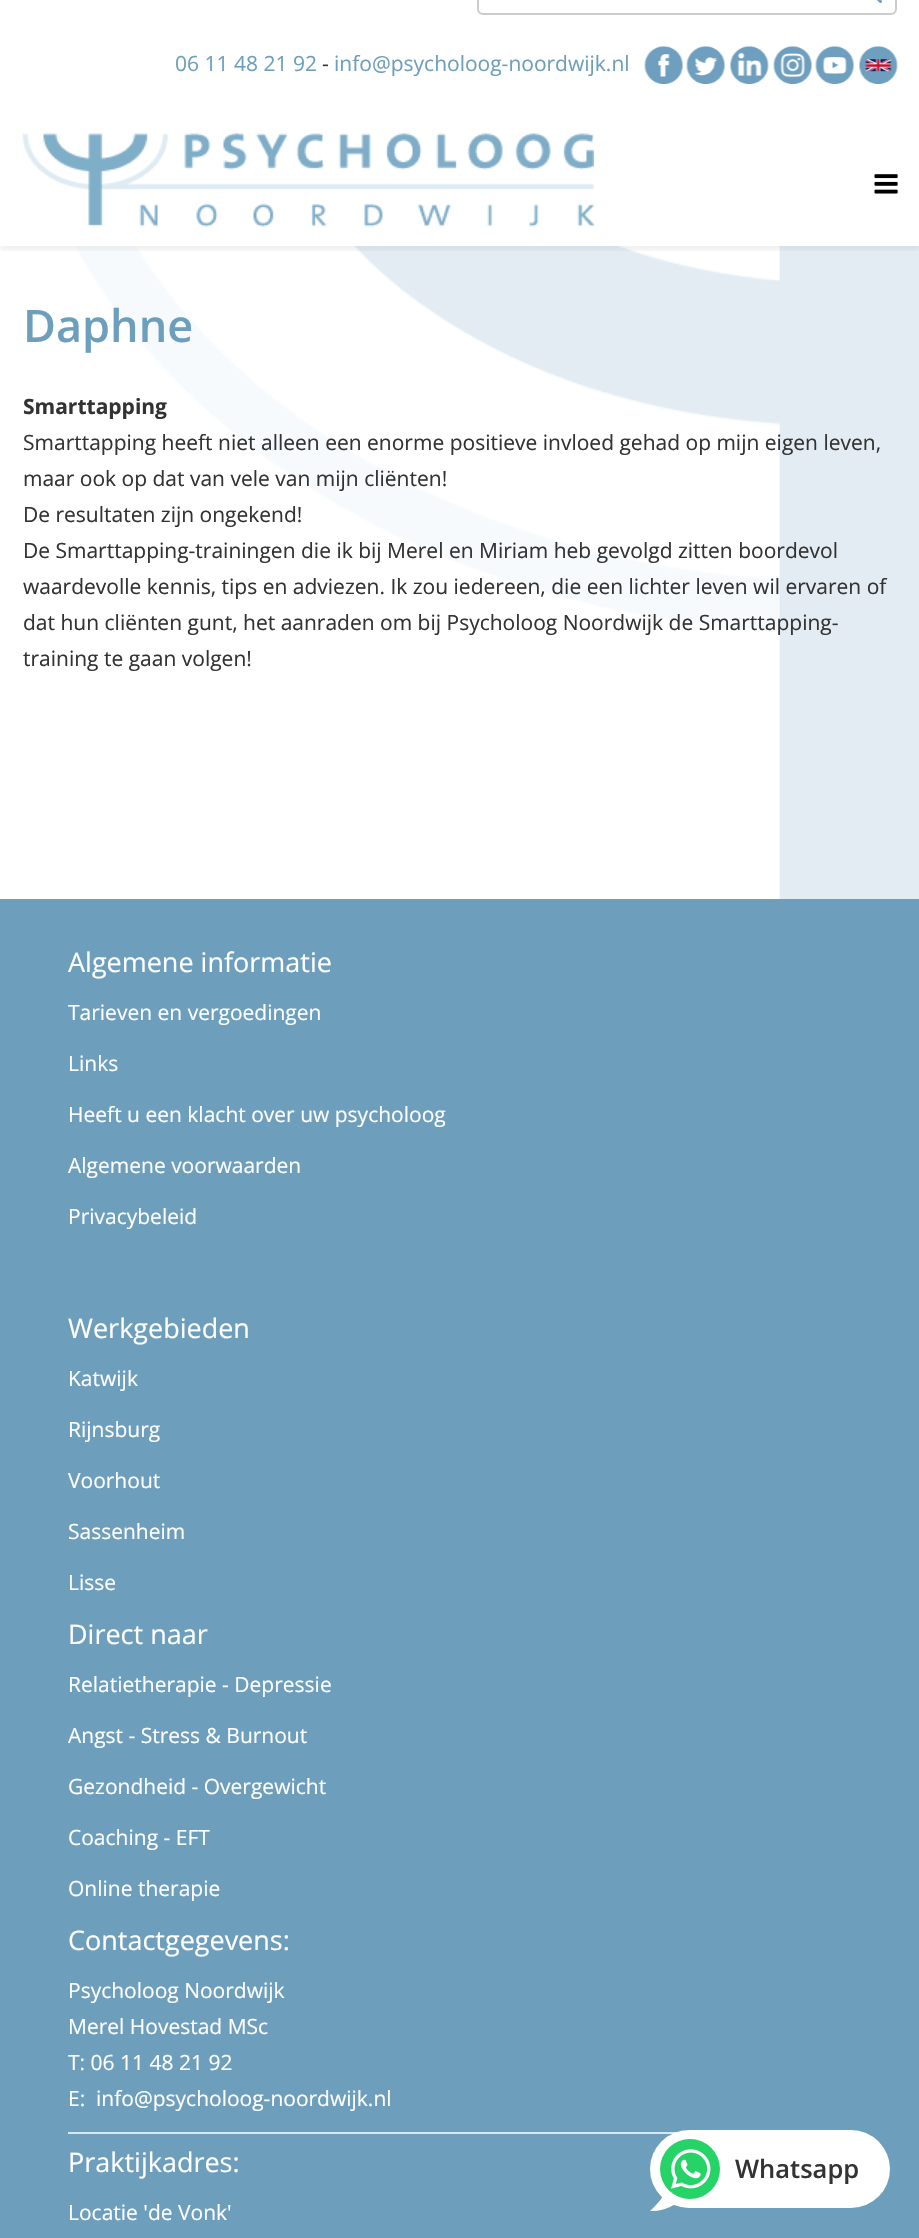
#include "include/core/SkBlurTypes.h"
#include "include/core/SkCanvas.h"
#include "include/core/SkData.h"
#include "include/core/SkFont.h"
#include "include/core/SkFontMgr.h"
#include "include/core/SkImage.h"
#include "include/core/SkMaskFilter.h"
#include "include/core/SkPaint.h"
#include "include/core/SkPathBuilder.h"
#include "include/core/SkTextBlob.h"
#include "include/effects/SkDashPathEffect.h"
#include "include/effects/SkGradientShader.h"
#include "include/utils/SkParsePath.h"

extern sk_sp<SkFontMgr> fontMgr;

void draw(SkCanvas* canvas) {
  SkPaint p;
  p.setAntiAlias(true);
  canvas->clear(SK_ColorWHITE);
  p.setStyle(SkPaint::kStroke_Style);
  p.setStrokeWidth(2);
  p.setColor(SkColorSetRGB(204, 204, 204));
  canvas->drawRoundRect(SkRect::MakeLTRB(478, -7, 896, 14), 5, 5, p);
  canvas->drawImageRect(SkImages::DeferredFromEncodedData(SkData::MakeFromFileName("images/1.png")), SkRect::MakeLTRB(877, 0, 882, 3), SkSamplingOptions());
  canvas->drawImageRect(SkImages::DeferredFromEncodedData(SkData::MakeFromFileName("images/2.png")), SkRect::MakeLTRB(644, 46, 683, 84), SkSamplingOptions());
  canvas->drawImageRect(SkImages::DeferredFromEncodedData(SkData::MakeFromFileName("images/3.png")), SkRect::MakeLTRB(686, 46, 725, 84), SkSamplingOptions());
  canvas->drawImageRect(SkImages::DeferredFromEncodedData(SkData::MakeFromFileName("images/4.png")), SkRect::MakeLTRB(730, 46, 769, 84), SkSamplingOptions());
  canvas->drawImageRect(SkImages::DeferredFromEncodedData(SkData::MakeFromFileName("images/5.png")), SkRect::MakeLTRB(773, 46, 812, 84), SkSamplingOptions());
  canvas->drawImageRect(SkImages::DeferredFromEncodedData(SkData::MakeFromFileName("images/6.png")), SkRect::MakeLTRB(815, 46, 854, 84), SkSamplingOptions());
  canvas->drawImageRect(SkImages::DeferredFromEncodedData(SkData::MakeFromFileName("images/7.png")), SkRect::MakeLTRB(859, 46, 898, 84), SkSamplingOptions());
  canvas->save();
  canvas->clipRect(SkRect::MakeLTRB(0, 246, 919, 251));
  p.setStyle(SkPaint::kFill_Style);
  p.setColor(SkColorSetARGB(13, 0, 0, 0));
  p.setMaskFilter(SkMaskFilter::MakeBlur(kNormal_SkBlurStyle, 2));
  canvas->drawRect(SkRect::MakeLTRB(0, 116, 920, 251), p);
  p.setMaskFilter(nullptr);
  canvas->restore();
  canvas->drawImageRect(SkImages::DeferredFromEncodedData(SkData::MakeFromFileName("images/8.png")), SkRect::MakeLTRB(22, 133, 594, 227), SkSamplingOptions());
  canvas->drawImageRect(SkImages::DeferredFromEncodedData(SkData::MakeFromFileName("images/9.png")), SkRect::MakeLTRB(874, 174, 898, 194), SkSamplingOptions());
  canvas->drawImageRect(SkImages::DeferredFromEncodedData(SkData::MakeFromFileName("images/10.png")), SkRect::MakeLTRB(76, 246, 919, 899), SkSamplingOptions());
  p.setColor(SkColorSetRGB(109, 159, 189));
  canvas->drawRect(SkRect::MakeLTRB(0, 899, 919, 2238), p);
  p.setColor(SkColorSetRGB(214, 231, 241));
  canvas->drawRect(SkRect::MakeLTRB(68, 2132, 677, 2134), p);
  p.setColor(SK_ColorWHITE);
  canvas->drawRoundRect(SkRect::MakeLTRB(650, 2130, 890, 2208), 39, 39, p);
  canvas->drawPath(SkPathBuilder().moveTo(667.5f, 2186).lineTo(683, 2197).cubicTo(675, 2206, 662.5f, 2212, 650, 2211).cubicTo(655, 2207, 668, 2192.5f, 667.5f, 2186).close().detach(), p);
  p.setColor(SkColorSetRGB(37, 211, 102));
  canvas->drawCircle(690, 2169, 30, p);
  canvas->drawImageRect(SkImages::DeferredFromEncodedData(SkData::MakeFromFileName("images/11.png")), SkRect::MakeLTRB(671, 2149, 711, 2189), SkSamplingOptions());
  SkFont font1(fontMgr->matchFamilyStyle("Open Sans", SkFontStyle::Normal()), 21);
  font1.setSubpixel(true);
  p.setColor(SkColorSetRGB(109, 159, 189));
  canvas->drawString("06 11 48 21 92", 175, 71, font1, p);
  p.setColor(SkColorSetRGB(51, 51, 51));
  canvas->drawString("-", 322, 71, font1, p);
  p.setColor(SkColorSetRGB(109, 159, 189));
  canvas->drawString("info@psycholoog-noordwijk.nl", 334, 71, font1, p);
  SkFont font2(fontMgr->matchFamilyStyle("Open Sans", SkFontStyle(600, SkFontStyle::kNormal_Width, SkFontStyle::kUpright_Slant)), 45);
  font2.setSubpixel(true);
  canvas->drawString("Daphne", 23, 342, font2, p);
  SkFont font3(fontMgr->matchFamilyStyle("Open Sans", SkFontStyle::Bold()), 21);
  font3.setSubpixel(true);
  p.setColor(SkColorSetRGB(51, 51, 51));
  canvas->drawString("Smarttapping", 23, 414, font3, p);
  canvas->drawString("Smarttapping heeft niet alleen een enorme positieve invloed gehad op mijn eigen leven,", 23, 450, font1, p);
  canvas->drawString("maar ook op dat van vele van mijn cliënten!", 23, 486, font1, p);
  canvas->drawString("De resultaten zijn ongekend!", 23, 522, font1, p);
  canvas->drawString("De Smarttapping-trainingen die ik bij Merel en Miriam heb gevolgd zitten boordevol", 23, 558, font1, p);
  canvas->drawString("waardevolle kennis, tips en adviezen. Ik zou iedereen, die een lichter leven wil ervaren of", 23, 594, font1, p);
  canvas->drawString("dat hun cliënten gunt, het aanraden om bij Psycholoog Noordwijk de Smarttapping-", 23, 630, font1, p);
  canvas->drawString("training te gaan volgen!", 23, 666, font1, p);
  SkFont font4(fontMgr->matchFamilyStyle("Open Sans", SkFontStyle::Normal()), 27);
  font4.setSubpixel(true);
  p.setColor(SK_ColorWHITE);
  canvas->drawString("Algemene informatie", 68, 972, font4, p);
  canvas->drawString("Tarieven en vergoedingen", 68, 1020, font1, p);
  canvas->drawString("Links", 68, 1071, font1, p);
  canvas->drawString("Heeft u een klacht over uw psycholoog", 68, 1122, font1, p);
  canvas->drawString("Algemene voorwaarden", 68, 1173, font1, p);
  canvas->drawString("Privacybeleid", 68, 1224, font1, p);
  canvas->drawString("Werkgebieden", 68, 1338, font4, p);
  canvas->drawString("Katwijk", 68, 1386, font1, p);
  canvas->drawString("Rijnsburg", 68, 1437, font1, p);
  canvas->drawString("Voorhout", 68, 1488, font1, p);
  canvas->drawString("Sassenheim", 68, 1539, font1, p);
  canvas->drawString("Lisse", 68, 1590, font1, p);
  canvas->drawString("Direct naar", 68, 1644, font4, p);
  canvas->drawString("Relatietherapie - Depressie", 68, 1692, font1, p);
  canvas->drawString("Angst - Stress & Burnout", 68, 1743, font1, p);
  canvas->drawString("Gezondheid - Overgewicht", 68, 1794, font1, p);
  canvas->drawString("Coaching - EFT", 68, 1845, font1, p);
  canvas->drawString("Online therapie", 68, 1896, font1, p);
  canvas->drawString("Contactgegevens:", 68, 1950, font4, p);
  canvas->drawString("Psycholoog Noordwijk", 68, 1998, font1, p);
  canvas->drawString("Merel Hovestad MSc", 68, 2034, font1, p);
  canvas->drawString("T: 06 11 48 21 92", 68, 2070, font1, p);
  canvas->drawString("E:", 68, 2106, font1, p);
  canvas->drawString("info@psycholoog-noordwijk.nl", 96, 2106, font1, p);
  canvas->drawString("Praktijkadres:", 68, 2172, font4, p);
  canvas->drawString("Locatie 'de Vonk'", 68, 2220, font1, p);
  SkFont font5(fontMgr->matchFamilyStyle("Open Sans", SkFontStyle(600, SkFontStyle::kNormal_Width, SkFontStyle::kUpright_Slant)), 25.5f);
  font5.setSubpixel(true);
  p.setColor(SkColorSetRGB(51, 51, 51));
  canvas->drawString("Whatsapp", 735, 2178, font5, p);
}
